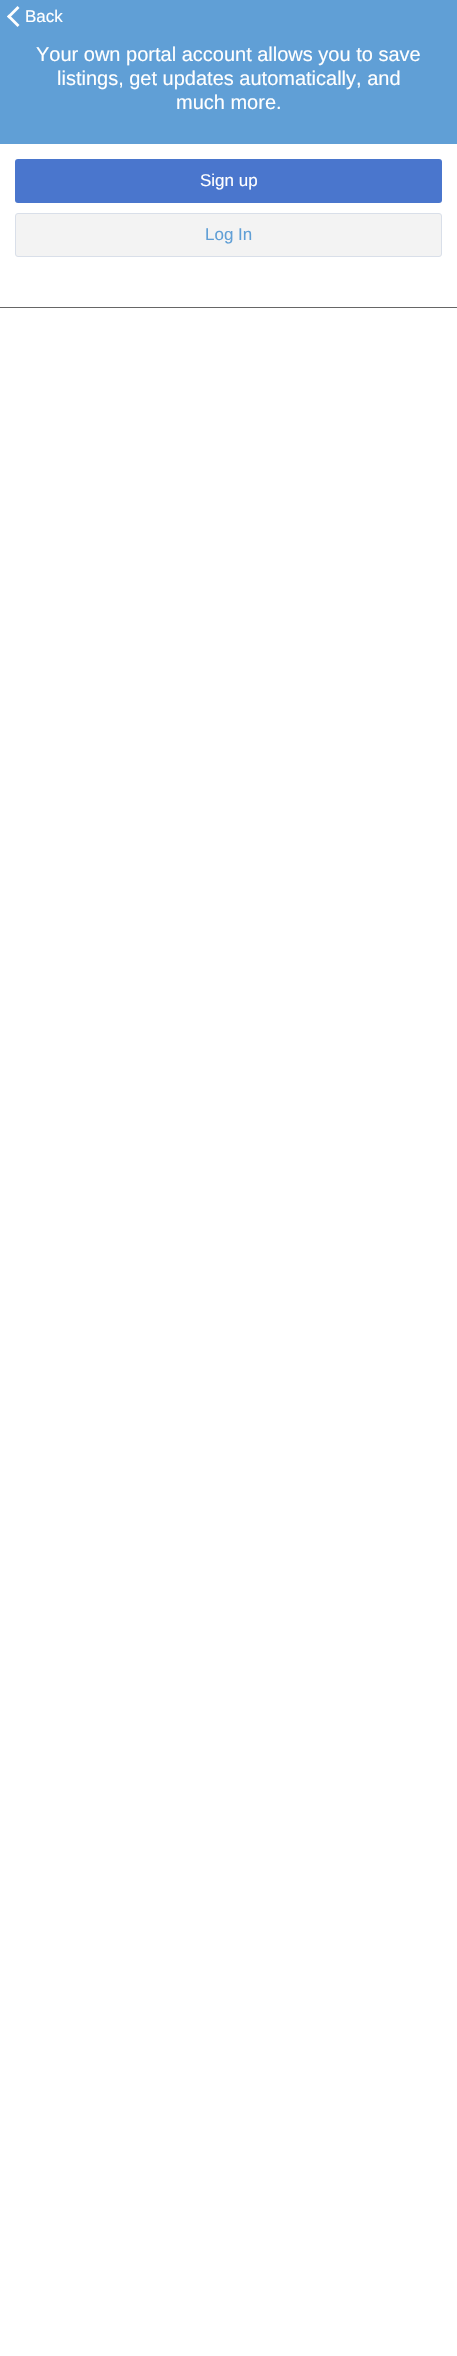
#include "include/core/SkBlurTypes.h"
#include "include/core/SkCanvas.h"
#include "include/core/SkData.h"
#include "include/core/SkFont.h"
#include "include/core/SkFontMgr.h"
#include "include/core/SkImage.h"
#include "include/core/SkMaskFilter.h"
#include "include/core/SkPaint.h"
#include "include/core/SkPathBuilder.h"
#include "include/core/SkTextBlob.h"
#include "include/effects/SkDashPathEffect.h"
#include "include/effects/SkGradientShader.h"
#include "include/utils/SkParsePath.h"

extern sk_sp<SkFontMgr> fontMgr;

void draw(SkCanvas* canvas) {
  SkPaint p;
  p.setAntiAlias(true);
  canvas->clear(SK_ColorWHITE);
  p.setColor(SkColorSetRGB(96, 159, 214));
  canvas->drawRect(SkRect::MakeLTRB(0, 0, 457, 144), p);
  p.setColor(SK_ColorWHITE);
  canvas->drawPath(SkPathBuilder().moveTo(9, 14.5f).lineTo(19.5f, 25).lineTo(17.5f, 27).lineTo(7, 16.5f).close().detach(), p);
  canvas->drawPath(SkPathBuilder().moveTo(17.5f, 6).lineTo(19.5f, 8).lineTo(9, 18.5f).lineTo(7, 16.5f).close().detach(), p);
  p.setColor(SkColorSetRGB(74, 118, 205));
  canvas->drawRoundRect(SkRect::MakeLTRB(15, 159, 442, 203), 3, 3, p);
  p.setColor(SkColorSetRGB(243, 243, 243));
  canvas->drawRoundRect(SkRect::MakeLTRB(15.5f, 213.5f, 441.5f, 256.5f), 2.5f, 2.5f, p);
  p.setStyle(SkPaint::kStroke_Style);
  p.setStrokeWidth(1);
  p.setColor(SkColorSetRGB(217, 223, 233));
  canvas->drawRoundRect(SkRect::MakeLTRB(15.5f, 213.5f, 441.5f, 256.5f), 2.5f, 2.5f, p);
  p.setStyle(SkPaint::kFill_Style);
  p.setColor(SkColorSetRGB(102, 102, 102));
  canvas->drawRect(SkRect::MakeLTRB(0, 307, 457, 308), p);
  SkFont font1(fontMgr->matchFamilyStyle("Liberation Sans", SkFontStyle::Normal()), 17);
  font1.setSubpixel(true);
  p.setColor(SK_ColorWHITE);
  canvas->drawString("Back", 25, 22, font1, p);
  SkFont font2(fontMgr->matchFamilyStyle("Liberation Sans", SkFontStyle::Normal()), 20);
  font2.setSubpixel(true);
  canvas->drawString("Your own portal account allows you to save", 36, 61, font2, p);
  canvas->drawString("listings, get updates automatically, and", 57, 85, font2, p);
  canvas->drawString("much more.", 176, 109, font2, p);
  canvas->drawString("Sign up", 200, 186, font1, p);
  p.setColor(SkColorSetRGB(96, 159, 214));
  canvas->drawString("Log In", 205, 240, font1, p);
}
